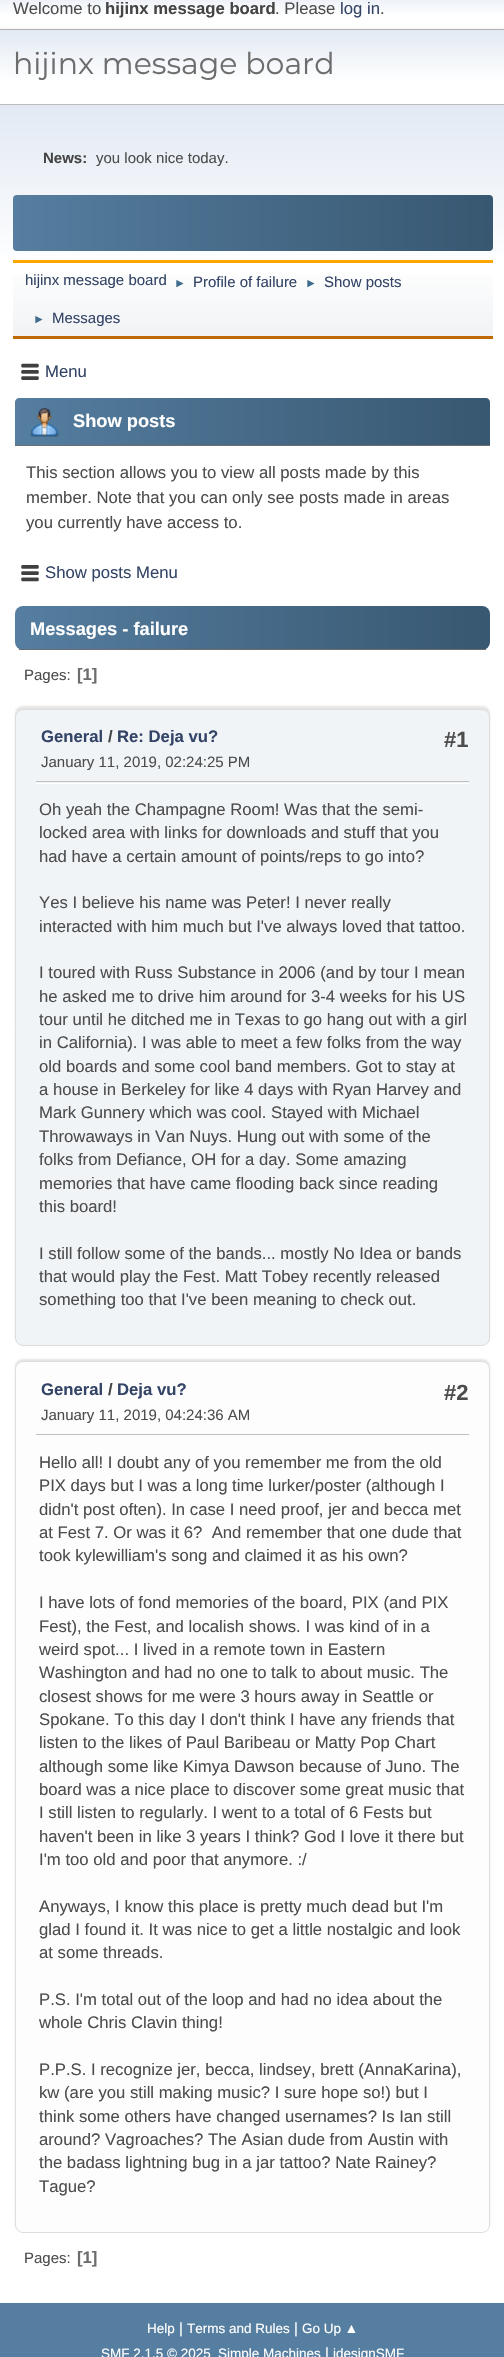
#include "include/core/SkBlurTypes.h"
#include "include/core/SkCanvas.h"
#include "include/core/SkData.h"
#include "include/core/SkFont.h"
#include "include/core/SkFontMgr.h"
#include "include/core/SkImage.h"
#include "include/core/SkMaskFilter.h"
#include "include/core/SkPaint.h"
#include "include/core/SkPathBuilder.h"
#include "include/core/SkTextBlob.h"
#include "include/effects/SkDashPathEffect.h"
#include "include/effects/SkGradientShader.h"
#include "include/utils/SkParsePath.h"

extern sk_sp<SkFontMgr> fontMgr;

void draw(SkCanvas* canvas) {
  SkPaint p;
  p.setAntiAlias(true);
  canvas->clear(SK_ColorWHITE);
  {
    const SkColor colors[] = {SkColorSetRGB(226, 233, 243), SK_ColorWHITE};
    const float stops[] = {0, 0.7f};
    const SkPoint ends[] = {{253, -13}, {253, 29}};
    p.setShader(SkGradientShader::MakeLinear(ends, colors, stops, 2, SkTileMode::kClamp));
    p.setAlpha(255);
  }
  canvas->drawRect(SkRect::MakeLTRB(0, 0, 504, 14), p);
  p.setShader(nullptr);
  p.setColor(SkColorSetRGB(187, 187, 187));
  canvas->drawRect(SkRect::MakeLTRB(0, 29, 504, 30), p);
  p.setColor(SkColorSetARGB(41, 0, 0, 0));
  p.setMaskFilter(SkMaskFilter::MakeBlur(kNormal_SkBlurStyle, 2.5f));
  canvas->drawRect(SkRect::MakeLTRB(0, 31, 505, 106), p);
  p.setMaskFilter(nullptr);
  {
    const SkColor colors[] = {SkColorSetRGB(226, 233, 243), SK_ColorWHITE};
    const float stops[] = {0, 0.7f};
    const SkPoint ends[] = {{253, 30}, {253, 104}};
    p.setShader(SkGradientShader::MakeLinear(ends, colors, stops, 2, SkTileMode::kClamp));
    p.setAlpha(255);
  }
  canvas->drawRect(SkRect::MakeLTRB(0, 30, 504, 104), p);
  p.setShader(nullptr);
  p.setColor(SkColorSetRGB(187, 187, 187));
  canvas->drawRect(SkRect::MakeLTRB(0, 104, 504, 105), p);
  {
    const SkColor colors[] = {SkColorSetRGB(226, 233, 243), SK_ColorWHITE};
    const float stops[] = {0, 0.7f};
    const SkPoint ends[] = {{253, 105}, {253, 341}};
    p.setShader(SkGradientShader::MakeLinear(ends, colors, stops, 2, SkTileMode::kClamp));
    p.setAlpha(255);
  }
  canvas->drawRect(SkRect::MakeLTRB(0, 105, 504, 256), p);
  {
    const SkColor colors[] = {SkColorSetRGB(85, 126, 160), SkColorSetRGB(78, 116, 148), SkColorSetRGB(70, 106, 136), SkColorSetRGB(63, 97, 124), SkColorSetRGB(56, 87, 113)};
    const float stops[] = {0, 0.25f, 0.5f, 0.75f, 1};
    const SkPoint ends[] = {{13, 223}, {493, 223}};
    p.setShader(SkGradientShader::MakeLinear(ends, colors, stops, 5, SkTileMode::kClamp));
    p.setAlpha(255);
  }
  canvas->drawRoundRect(SkRect::MakeLTRB(13, 195, 493, 251), 4, 4, p);
  {
    const SkColor colors[] = {SK_ColorWHITE, SkColorSetRGB(241, 243, 245)};
    const float stops[] = {0, 0.95f};
    const SkPoint ends[] = {{253, 262}, {253, 336}};
    p.setShader(SkGradientShader::MakeLinear(ends, colors, stops, 2, SkTileMode::kClamp));
    p.setAlpha(255);
  }
  canvas->drawRect(SkRect::MakeLTRB(13, 275, 493, 336), p);
  p.setShader(nullptr);
  p.setColor(SkColorSetRGB(255, 165, 0));
  canvas->drawRect(SkRect::MakeLTRB(13, 260, 493, 263), p);
  p.setColor(SkColorSetRGB(191, 105, 0));
  canvas->drawRect(SkRect::MakeLTRB(13, 336, 493, 339), p);
  canvas->drawImageRect(SkImages::DeferredFromEncodedData(SkData::MakeFromFileName("images/1.png")), SkRect::MakeLTRB(21, 363, 39, 380), SkSamplingOptions());
  {
    const SkColor colors[] = {SkColorSetRGB(85, 126, 160), SkColorSetRGB(78, 116, 148), SkColorSetRGB(70, 106, 136), SkColorSetRGB(63, 97, 124), SkColorSetRGB(56, 87, 113)};
    const float stops[] = {0, 0.25f, 0.5f, 0.75f, 1};
    const SkPoint ends[] = {{15, 421}, {490, 421}};
    p.setShader(SkGradientShader::MakeLinear(ends, colors, stops, 5, SkTileMode::kClamp));
    p.setAlpha(255);
  }
  canvas->drawPath(SkPathBuilder().moveTo(19, 398).lineTo(486, 398).cubicTo(488, 398, 490, 400, 490, 402).lineTo(490, 446).lineTo(15, 446).lineTo(15, 402).cubicTo(15, 400, 17, 398, 19, 398).close().detach(), p);
  p.setShader(nullptr);
  p.setColor(SkColorSetRGB(109, 109, 109));
  canvas->drawRect(SkRect::MakeLTRB(15, 445, 490, 446), p);
  canvas->drawImageRect(SkImages::DeferredFromEncodedData(SkData::MakeFromFileName("images/2.png")), SkRect::MakeLTRB(30, 408, 59, 437), SkSamplingOptions());
  canvas->drawImageRect(SkImages::DeferredFromEncodedData(SkData::MakeFromFileName("images/3.png")), SkRect::MakeLTRB(21, 565, 39, 582), SkSamplingOptions());
  {
    const SkColor colors[] = {SkColorSetRGB(85, 126, 160), SkColorSetRGB(78, 116, 148), SkColorSetRGB(70, 106, 136), SkColorSetRGB(63, 97, 124), SkColorSetRGB(56, 87, 113)};
    const float stops[] = {0, 0.25f, 0.5f, 0.75f, 1};
    const SkPoint ends[] = {{15, 628}, {490, 628}};
    p.setShader(SkGradientShader::MakeLinear(ends, colors, stops, 5, SkTileMode::kClamp));
    p.setAlpha(255);
  }
  canvas->drawRoundRect(SkRect::MakeLTRB(15, 606, 490, 650), 8, 8, p);
  p.setShader(nullptr);
  p.setColor(SkColorSetRGB(109, 109, 109));
  canvas->drawRect(SkRect::MakeLTRB(19, 649, 486, 650), p);
  p.setColor(SkColorSetARGB(26, 0, 0, 0));
  p.setMaskFilter(SkMaskFilter::MakeBlur(kNormal_SkBlurStyle, 1));
  canvas->drawRoundRect(SkRect::MakeLTRB(15, 706, 490, 1344), 8, 8, p);
  p.setMaskFilter(nullptr);
  p.setColor(SkColorSetRGB(240, 244, 247));
  canvas->drawRoundRect(SkRect::MakeLTRB(15.5f, 709.5f, 489.5f, 1345.5f), 7.5f, 7.5f, p);
  p.setStyle(SkPaint::kStroke_Style);
  p.setStrokeWidth(1);
  p.setColor(SkColorSetRGB(221, 221, 221));
  canvas->drawRoundRect(SkRect::MakeLTRB(15.5f, 709.5f, 489.5f, 1345.5f), 7.5f, 7.5f, p);
  p.setStyle(SkPaint::kFill_Style);
  p.setColor(SK_ColorWHITE);
  canvas->drawRect(SkRect::MakeLTRB(36, 783, 469, 784), p);
  p.setColor(SkColorSetRGB(191, 191, 191));
  canvas->drawRect(SkRect::MakeLTRB(36, 781, 469, 782), p);
  p.setColor(SkColorSetARGB(26, 0, 0, 0));
  p.setMaskFilter(SkMaskFilter::MakeBlur(kNormal_SkBlurStyle, 1));
  canvas->drawRoundRect(SkRect::MakeLTRB(15, 1359, 490, 2230), 8, 8, p);
  p.setMaskFilter(nullptr);
  p.setColor(SkColorSetRGB(253, 253, 253));
  canvas->drawRoundRect(SkRect::MakeLTRB(15.5f, 1361.5f, 489.5f, 2232.5f), 7.5f, 7.5f, p);
  p.setStyle(SkPaint::kStroke_Style);
  p.setColor(SkColorSetRGB(221, 221, 221));
  canvas->drawRoundRect(SkRect::MakeLTRB(15.5f, 1361.5f, 489.5f, 2232.5f), 7.5f, 7.5f, p);
  p.setStyle(SkPaint::kFill_Style);
  p.setColor(SkColorSetRGB(191, 191, 191));
  canvas->drawRect(SkRect::MakeLTRB(36, 1434, 469, 1435), p);
  p.setColor(SkColorSetRGB(85, 126, 160));
  canvas->drawRect(SkRect::MakeLTRB(0, 2303, 504, 2357), p);
  SkFont font1(fontMgr->matchFamilyStyle("Liberation Sans", SkFontStyle::Normal()), 16.7f);
  font1.setSubpixel(true);
  p.setColor(SkColorSetRGB(77, 77, 77));
  canvas->drawString("Welcome to", 13, 14, font1, p);
  SkFont font2(fontMgr->matchFamilyStyle("Liberation Sans", SkFontStyle::Bold()), 16.7f);
  font2.setSubpixel(true);
  p.setColor(SkColorSetRGB(68, 68, 68));
  canvas->drawString("hijinx message board", 105, 14, font2, p);
  p.setColor(SkColorSetRGB(77, 77, 77));
  canvas->drawString(". Please", 275, 14, font1, p);
  p.setColor(SkColorSetRGB(51, 68, 102));
  canvas->drawString("log in", 340, 14, font1, p);
  p.setColor(SkColorSetRGB(77, 77, 77));
  canvas->drawString(".", 380, 14, font1, p);
  SkFont font3(fontMgr->matchFamilyStyle("Montserrat", SkFontStyle::Normal()), 30);
  font3.setSubpixel(true);
  p.setColor(SkColorSetRGB(109, 109, 109));
  canvas->drawString("hijinx message board", 13, 74, font3, p);
  SkFont font4(fontMgr->matchFamilyStyle("Liberation Sans", SkFontStyle::Bold()), 15);
  font4.setSubpixel(true);
  p.setColor(SkColorSetRGB(68, 68, 68));
  canvas->drawString("News:", 43, 163, font4, p);
  SkFont font5(fontMgr->matchFamilyStyle("Liberation Sans", SkFontStyle::Normal()), 15);
  font5.setSubpixel(true);
  p.setColor(SkColorSetRGB(77, 77, 77));
  canvas->drawString("you look nice today.", 96, 163, font5, p);
  p.setColor(SkColorSetRGB(51, 68, 102));
  canvas->drawString("hijinx message board", 25, 285, font5, p);
  SkFont font6(fontMgr->matchFamilyStyle("Liberation Sans", SkFontStyle::Normal()), 12);
  font6.setSubpixel(true);
  p.setColor(SkColorSetRGB(63, 107, 140));
  canvas->drawString("►", 174, 287, font6, p);
  p.setColor(SkColorSetRGB(51, 68, 102));
  canvas->drawString("Profile of failure", 193, 287, font5, p);
  p.setColor(SkColorSetRGB(63, 107, 140));
  canvas->drawString("►", 305, 287, font6, p);
  p.setColor(SkColorSetRGB(51, 68, 102));
  canvas->drawString("Show posts", 324, 287, font5, p);
  p.setColor(SkColorSetRGB(63, 107, 140));
  canvas->drawString("►", 33, 323, font6, p);
  p.setColor(SkColorSetRGB(51, 68, 102));
  canvas->drawString("Messages", 52, 323, font5, p);
  canvas->drawString("Menu", 45, 377, font1, p);
  SkFont font7(fontMgr->matchFamilyStyle("Liberation Sans", SkFontStyle::Bold()), 18.25f);
  font7.setSubpixel(true);
  p.setColor(SK_ColorWHITE);
  canvas->drawString("Show posts", 73, 427, font7, p);
  p.setColor(SkColorSetRGB(77, 77, 77));
  canvas->drawString("This section allows you to view all posts made by this", 26, 478, font1, p);
  canvas->drawString("member. Note that you can only see posts made in areas", 26, 503, font1, p);
  canvas->drawString("you currently have access to.", 26, 528, font1, p);
  p.setColor(SkColorSetRGB(51, 68, 102));
  canvas->drawString("Show posts Menu", 45, 578, font1, p);
  p.setColor(SK_ColorWHITE);
  canvas->drawString("Messages - failure", 30, 635, font7, p);
  p.setColor(SkColorSetRGB(77, 77, 77));
  canvas->drawString("Pages:", 24, 680, font5, p);
  p.setColor(SkColorSetRGB(109, 109, 109));
  canvas->drawString("[1]", 77, 680, font2, p);
  p.setColor(SkColorSetRGB(51, 68, 102));
  canvas->drawString("General", 41, 742, font2, p);
  p.setColor(SkColorSetRGB(68, 68, 68));
  canvas->drawString("/", 108, 742, font2, p);
  p.setColor(SkColorSetRGB(51, 68, 102));
  canvas->drawString("Re: Deja vu?", 117, 742, font2, p);
  p.setColor(SkColorSetRGB(77, 77, 77));
  canvas->drawString("January 11, 2019, 02:24:25 PM", 41, 767, font5, p);
  SkFont font8(fontMgr->matchFamilyStyle("Liberation Sans", SkFontStyle::Bold()), 22);
  font8.setSubpixel(true);
  canvas->drawString("#1", 444, 747, font8, p);
  canvas->drawString("Oh yeah the Champagne Room! Was that the semi-", 39, 815, font1, p);
  canvas->drawString("locked area with links for downloads and stuff that you", 39, 838, font1, p);
  canvas->drawString("had have a certain amount of points/reps to go into?", 39, 862, font1, p);
  canvas->drawString("Yes I believe his name was Peter! I never really", 39, 908, font1, p);
  canvas->drawString("interacted with him much but I've always loved that tattoo.", 39, 932, font1, p);
  canvas->drawString("I toured with Russ Substance in 2006 (and by tour I mean", 39, 978, font1, p);
  canvas->drawString("he asked me to drive him around for 3-4 weeks for his US", 39, 1002, font1, p);
  canvas->drawString("tour until he ditched me in Texas to go hang out with a girl", 39, 1025, font1, p);
  canvas->drawString("in California). I was able to meet a few folks from the way", 39, 1048, font1, p);
  canvas->drawString("old boards and some cool band members. Got to stay at", 39, 1072, font1, p);
  canvas->drawString("a house in Berkeley for like 4 days with Ryan Harvey and", 39, 1095, font1, p);
  canvas->drawString("Mark Gunnery which was cool. Stayed with Michael", 39, 1118, font1, p);
  canvas->drawString("Throwaways in Van Nuys. Hung out with some of the", 39, 1142, font1, p);
  canvas->drawString("folks from Defiance, OH for a day. Some amazing", 39, 1165, font1, p);
  canvas->drawString("memories that have came flooding back since reading", 39, 1189, font1, p);
  canvas->drawString("this board!", 39, 1212, font1, p);
  canvas->drawString("I still follow some of the bands... mostly No Idea or bands", 39, 1259, font1, p);
  canvas->drawString("that would play the Fest. Matt Tobey recently released", 39, 1282, font1, p);
  canvas->drawString("something too that I've been meaning to check out.", 39, 1305, font1, p);
  p.setColor(SkColorSetRGB(51, 68, 102));
  canvas->drawString("General", 41, 1395, font2, p);
  p.setColor(SkColorSetRGB(68, 68, 68));
  canvas->drawString("/", 108, 1395, font2, p);
  p.setColor(SkColorSetRGB(51, 68, 102));
  canvas->drawString("Deja vu?", 117, 1395, font2, p);
  p.setColor(SkColorSetRGB(77, 77, 77));
  canvas->drawString("January 11, 2019, 04:24:36 AM", 41, 1420, font5, p);
  canvas->drawString("#2", 444, 1400, font8, p);
  canvas->drawString("Hello all! I doubt any of you remember me from the old", 39, 1468, font1, p);
  canvas->drawString("PIX days but I was a long time lurker/poster (although I", 39, 1491, font1, p);
  canvas->drawString("didn't post often). In case I need proof, jer and becca met", 39, 1515, font1, p);
  canvas->drawString("at Fest 7. Or was it 6?  And remember that one dude that", 39, 1538, font1, p);
  canvas->drawString("took kylewilliam's song and claimed it as his own?", 39, 1561, font1, p);
  canvas->drawString("I have lots of fond memories of the board, PIX (and PIX", 39, 1608, font1, p);
  canvas->drawString("Fest), the Fest, and localish shows. I was kind of in a", 39, 1632, font1, p);
  canvas->drawString("weird spot... I lived in a remote town in Eastern", 39, 1655, font1, p);
  canvas->drawString("Washington and had no one to talk to about music. The", 39, 1678, font1, p);
  canvas->drawString("closest shows for me were 3 hours away in Seattle or", 39, 1702, font1, p);
  canvas->drawString("Spokane. To this day I don't think I have any friends that", 39, 1725, font1, p);
  canvas->drawString("listen to the likes of Paul Baribeau or Matty Pop Chart", 39, 1748, font1, p);
  canvas->drawString("although some like Kimya Dawson because of Juno. The", 39, 1772, font1, p);
  canvas->drawString("board was a nice place to discover some great music that", 39, 1795, font1, p);
  canvas->drawString("I still listen to regularly. I went to a total of 6 Fests but", 39, 1818, font1, p);
  canvas->drawString("haven't been in like 3 years I think? God I love it there but", 39, 1842, font1, p);
  canvas->drawString("I'm too old and poor that anymore. :/", 39, 1865, font1, p);
  canvas->drawString("Anyways, I know this place is pretty much dead but I'm", 39, 1912, font1, p);
  canvas->drawString("glad I found it. It was nice to get a little nostalgic and look", 39, 1935, font1, p);
  canvas->drawString("at some threads.", 39, 1958, font1, p);
  canvas->drawString("P.S. I'm total out of the loop and had no idea about the", 39, 2005, font1, p);
  canvas->drawString("whole Chris Clavin thing!", 39, 2028, font1, p);
  canvas->drawString("P.P.S. I recognize jer, becca, lindsey, brett (AnnaKarina),", 39, 2075, font1, p);
  canvas->drawString("kw (are you still making music? I sure hope so!) but I", 39, 2098, font1, p);
  canvas->drawString("think some others have changed usernames? Is Ian still", 39, 2122, font1, p);
  canvas->drawString("around? Vagroaches? The Asian dude from Austin with", 39, 2145, font1, p);
  canvas->drawString("the badass lightning bug in a jar tattoo? Nate Rainey?", 39, 2168, font1, p);
  canvas->drawString("Tague?", 39, 2192, font1, p);
  canvas->drawString("Pages:", 24, 2263, font5, p);
  p.setColor(SkColorSetRGB(109, 109, 109));
  canvas->drawString("[1]", 77, 2263, font2, p);
  SkFont font9(fontMgr->matchFamilyStyle("Liberation Sans", SkFontStyle::Normal()), 13.5f);
  font9.setSubpixel(true);
  p.setColor(SK_ColorWHITE);
  canvas->drawString("Help", 147, 2333, font9, p);
  canvas->drawString("|", 179, 2333, font5, p);
  canvas->drawString("Terms and Rules", 187, 2333, font9, p);
  canvas->drawString("|", 294, 2333, font5, p);
  canvas->drawString("Go Up ▲", 302, 2333, font9, p);
  canvas->drawString("SMF 2.1.5 © 2025", 101, 2358, font9, p);
  canvas->drawString("Simple Machines", 218, 2358, font9, p);
  canvas->drawString("|", 325, 2358, font5, p);
  canvas->drawString("idesignSMF", 333, 2358, font9, p);
}
